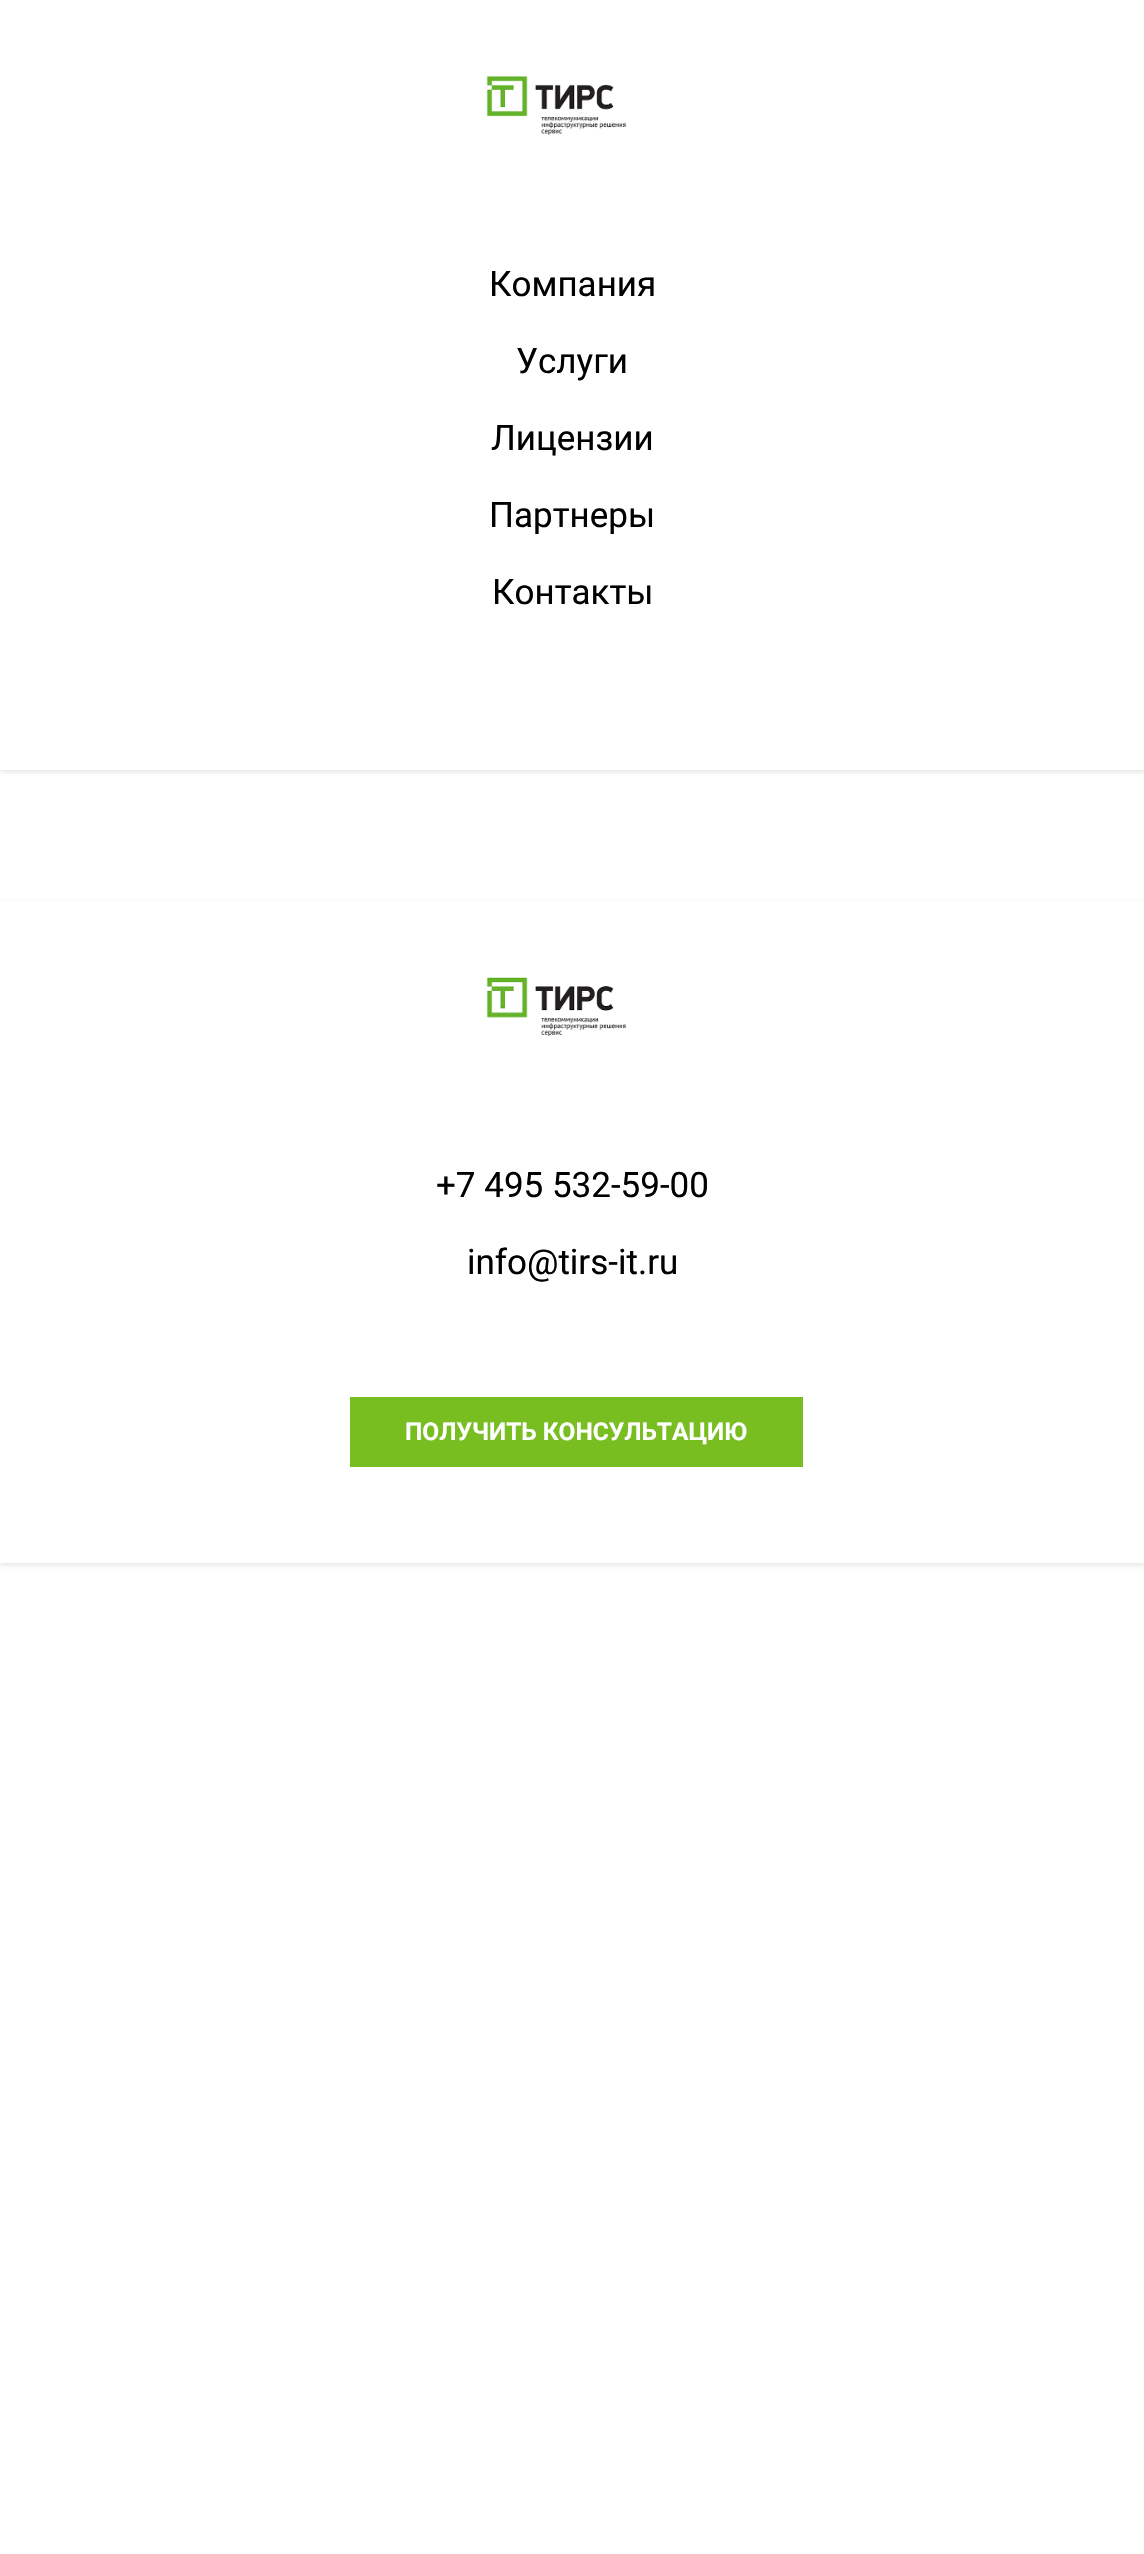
#include "include/core/SkBlurTypes.h"
#include "include/core/SkCanvas.h"
#include "include/core/SkData.h"
#include "include/core/SkFont.h"
#include "include/core/SkFontMgr.h"
#include "include/core/SkImage.h"
#include "include/core/SkMaskFilter.h"
#include "include/core/SkPaint.h"
#include "include/core/SkPathBuilder.h"
#include "include/core/SkTextBlob.h"
#include "include/effects/SkDashPathEffect.h"
#include "include/effects/SkGradientShader.h"
#include "include/utils/SkParsePath.h"

extern sk_sp<SkFontMgr> fontMgr;

void draw(SkCanvas* canvas) {
  SkPaint p;
  p.setAntiAlias(true);
  canvas->clear(SK_ColorWHITE);
  canvas->save();
  canvas->clipRect(SkRect::MakeLTRB(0, 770, 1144, 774));
  p.setColor(SkColorSetARGB(26, 0, 0, 0));
  p.setMaskFilter(SkMaskFilter::MakeBlur(kNormal_SkBlurStyle, 2.5f));
  canvas->drawRect(SkRect::MakeLTRB(0, 2, 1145, 772), p);
  p.setMaskFilter(nullptr);
  canvas->restore();
  canvas->drawImageRect(SkImages::DeferredFromEncodedData(SkData::MakeFromFileName("images/1.png")), SkRect::MakeLTRB(486, 75, 627, 135), SkSamplingOptions());
  p.setMaskFilter(SkMaskFilter::MakeBlur(kNormal_SkBlurStyle, 2.5f));
  canvas->drawRect(SkRect::MakeLTRB(0, 903, 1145, 1565), p);
  p.setMaskFilter(nullptr);
  p.setColor(SK_ColorWHITE);
  canvas->drawRect(SkRect::MakeLTRB(0, 901, 1144, 1563), p);
  canvas->drawImageRect(SkImages::DeferredFromEncodedData(SkData::MakeFromFileName("images/2.png")), SkRect::MakeLTRB(486, 977, 627, 1037), SkSamplingOptions());
  p.setColor(SkColorSetRGB(120, 190, 33));
  canvas->drawRect(SkRect::MakeLTRB(350, 1397, 803, 1467), p);
  SkFont font1(fontMgr->matchFamilyStyle("Roboto", SkFontStyle::Normal()), 35);
  font1.setSubpixel(true);
  p.setColor(SK_ColorBLACK);
  canvas->drawString("Компания", 489, 296, font1, p);
  canvas->drawString("Услуги", 516, 373, font1, p);
  canvas->drawString("Лицензии", 491, 450, font1, p);
  canvas->drawString("Партнеры", 489, 527, font1, p);
  canvas->drawString("Контакты", 492, 604, font1, p);
  canvas->drawString("+7 495 532-59-00", 436, 1197, font1, p);
  canvas->drawString("info@tirs-it.ru", 467, 1274, font1, p);
  SkFont font2(fontMgr->matchFamilyStyle("Roboto", SkFontStyle::Bold()), 24.5f);
  font2.setSubpixel(true);
  p.setColor(SK_ColorWHITE);
  canvas->drawString("ПОЛУЧИТЬ КОНСУЛЬТАЦИЮ", 405, 1440, font2, p);
}
